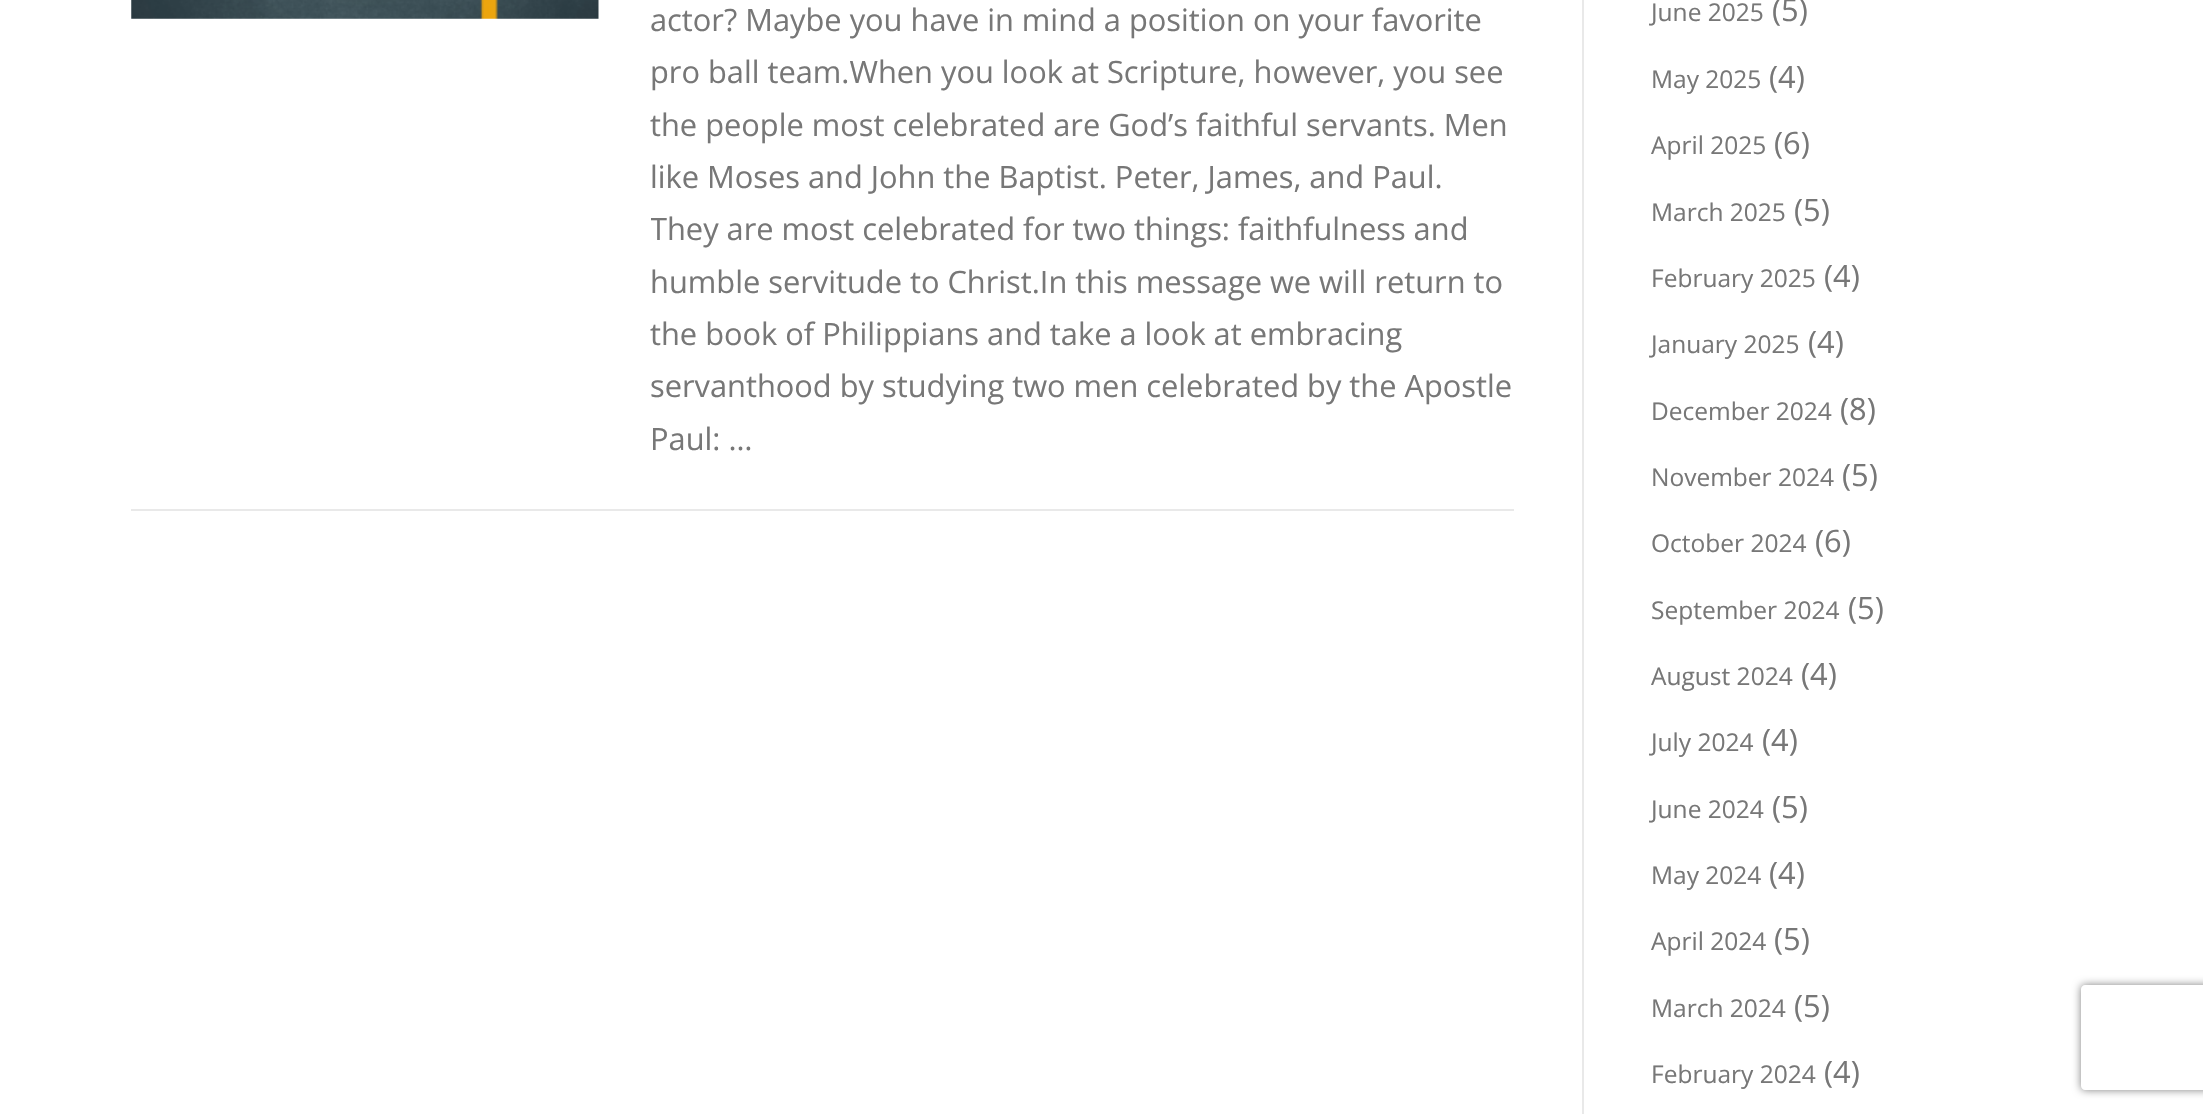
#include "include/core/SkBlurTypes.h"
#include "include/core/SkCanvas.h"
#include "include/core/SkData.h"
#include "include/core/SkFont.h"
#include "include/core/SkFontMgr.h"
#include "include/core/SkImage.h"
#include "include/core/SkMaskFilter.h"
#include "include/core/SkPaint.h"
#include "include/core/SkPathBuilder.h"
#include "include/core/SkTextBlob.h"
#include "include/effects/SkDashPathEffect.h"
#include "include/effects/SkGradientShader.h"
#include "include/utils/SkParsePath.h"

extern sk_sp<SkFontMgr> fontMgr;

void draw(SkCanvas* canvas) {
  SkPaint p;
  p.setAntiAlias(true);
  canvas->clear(SK_ColorWHITE);
  p.setColor(SkColorSetRGB(233, 233, 233));
  canvas->drawRect(SkRect::MakeLTRB(131, 509, 1514, 511), p);
  canvas->drawImageRect(SkImages::DeferredFromEncodedData(SkData::MakeFromFileName("images/1.png")), SkRect::MakeLTRB(131, 0, 599, 19), SkSamplingOptions());
  canvas->drawRect(SkRect::MakeLTRB(1582, 0, 1584, 1114), p);
  canvas->save();
  canvas->clipPath(SkPathBuilder(SkPathFillType::kEvenOdd).moveTo(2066, 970).lineTo(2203, 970).lineTo(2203, 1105).lineTo(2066, 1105).close().moveTo(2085, 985).lineTo(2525, 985).cubicTo(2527, 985, 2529, 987, 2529, 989).lineTo(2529, 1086).cubicTo(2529, 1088, 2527, 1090, 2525, 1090).lineTo(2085, 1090).cubicTo(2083, 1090, 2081, 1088, 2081, 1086).lineTo(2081, 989).cubicTo(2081, 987, 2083, 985, 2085, 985).close().detach(), true);
  p.setColor(SkColorSetRGB(128, 128, 128));
  p.setMaskFilter(SkMaskFilter::MakeBlur(kNormal_SkBlurStyle, 4.5f));
  canvas->drawRoundRect(SkRect::MakeLTRB(2081, 985, 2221, 1090), 4, 4, p);
  p.setMaskFilter(nullptr);
  canvas->restore();
  SkFont font1(fontMgr->matchFamilyStyle("Open Sans", SkFontStyle::Normal()), 30.8f);
  font1.setSubpixel(true);
  p.setColor(SkColorSetRGB(119, 119, 119));
  canvas->drawString("actor? Maybe you have in mind a position on your favorite", 650, 31, font1, p);
  canvas->drawString("pro ball team.When you look at Scripture, however, you see", 650, 83, font1, p);
  canvas->drawString("the people most celebrated are God’s faithful servants. Men", 650, 136, font1, p);
  canvas->drawString("like Moses and John the Baptist. Peter, James, and Paul.", 650, 188, font1, p);
  canvas->save();
  canvas->clipRect(SkRect::MakeLTRB(651, 0, 1514, 466));
  canvas->drawString("They are most celebrated for two things: faithfulness and", 650, 240, font1, p);
  canvas->restore();
  canvas->drawString("humble servitude to Christ.In this message we will return to", 650, 293, font1, p);
  canvas->drawString("the book of Philippians and take a look at embracing", 650, 345, font1, p);
  canvas->drawString("servanthood by studying two men celebrated by the Apostle", 650, 397, font1, p);
  canvas->drawString("Paul: …", 650, 450, font1, p);
  SkFont font2(fontMgr->matchFamilyStyle("Open Sans", SkFontStyle::Normal()), 24.5f);
  font2.setSubpixel(true);
  canvas->drawString("June 2025", 1651, 21, font2, p);
  canvas->drawString("(5)", 1772, 21, font1, p);
  canvas->drawString("May 2025", 1651, 88, font2, p);
  canvas->drawString("(4)", 1769, 88, font1, p);
  canvas->drawString("April 2025", 1651, 154, font2, p);
  canvas->drawString("(6)", 1774, 154, font1, p);
  canvas->drawString("March 2025", 1651, 221, font2, p);
  canvas->drawString("(5)", 1794, 221, font1, p);
  canvas->drawString("February 2025", 1651, 287, font2, p);
  canvas->drawString("(4)", 1824, 287, font1, p);
  canvas->drawString("January 2025", 1651, 353, font2, p);
  canvas->drawString("(4)", 1808, 353, font1, p);
  canvas->drawString("December 2024", 1651, 420, font2, p);
  canvas->drawString("(8)", 1840, 420, font1, p);
  canvas->drawString("November 2024", 1651, 486, font2, p);
  canvas->drawString("(5)", 1842, 486, font1, p);
  canvas->drawString("October 2024", 1651, 552, font2, p);
  canvas->drawString("(6)", 1815, 552, font1, p);
  canvas->drawString("September 2024", 1651, 619, font2, p);
  canvas->drawString("(5)", 1848, 619, font1, p);
  canvas->drawString("August 2024", 1651, 685, font2, p);
  canvas->drawString("(4)", 1801, 685, font1, p);
  canvas->drawString("July 2024", 1651, 751, font2, p);
  canvas->drawString("(4)", 1762, 751, font1, p);
  canvas->drawString("June 2024", 1651, 818, font2, p);
  canvas->drawString("(5)", 1772, 818, font1, p);
  canvas->drawString("May 2024", 1651, 884, font2, p);
  canvas->drawString("(4)", 1769, 884, font1, p);
  canvas->drawString("April 2024", 1651, 950, font2, p);
  canvas->drawString("(5)", 1774, 950, font1, p);
  canvas->drawString("March 2024", 1651, 1017, font2, p);
  canvas->drawString("(5)", 1794, 1017, font1, p);
  canvas->drawString("February 2024", 1651, 1083, font2, p);
  canvas->drawString("(4)", 1824, 1083, font1, p);
}
